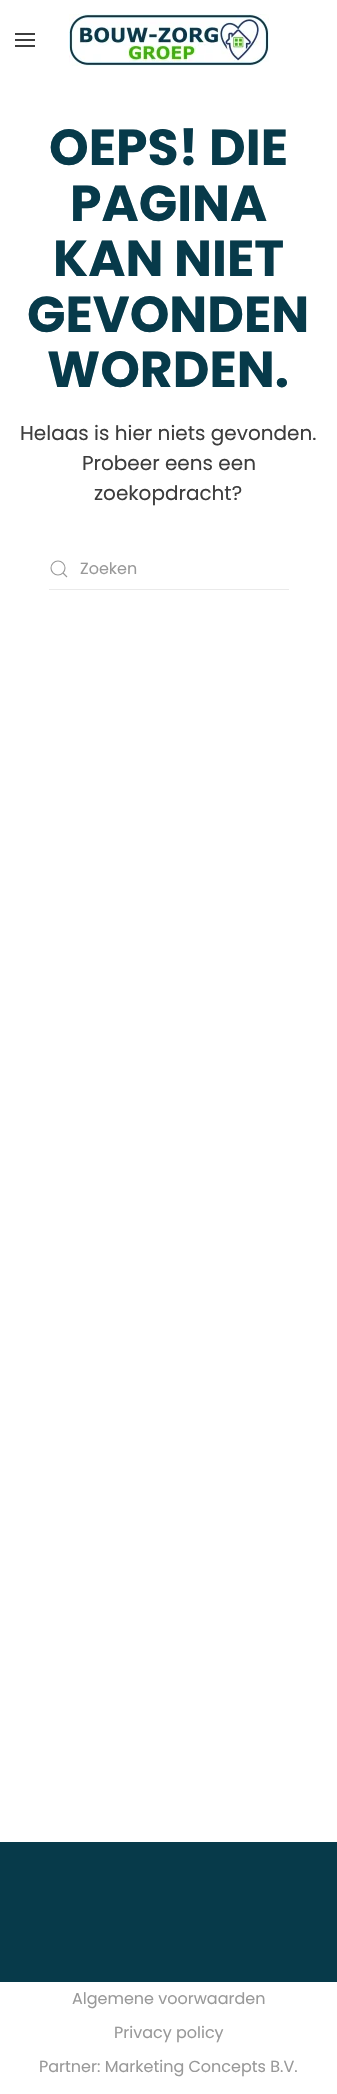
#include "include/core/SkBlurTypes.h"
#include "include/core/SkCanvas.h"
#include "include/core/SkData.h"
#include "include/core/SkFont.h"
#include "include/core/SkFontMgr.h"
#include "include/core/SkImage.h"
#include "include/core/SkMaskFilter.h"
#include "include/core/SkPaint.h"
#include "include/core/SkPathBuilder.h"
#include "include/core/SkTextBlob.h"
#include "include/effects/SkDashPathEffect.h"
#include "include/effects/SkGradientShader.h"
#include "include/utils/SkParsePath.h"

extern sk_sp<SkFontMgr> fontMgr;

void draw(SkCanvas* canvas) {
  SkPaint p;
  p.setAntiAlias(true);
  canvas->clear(SK_ColorWHITE);
  p.setColor(SkColorSetRGB(61, 61, 61));
  canvas->drawRect(SkRect::MakeLTRB(15, 33, 35, 35), p);
  canvas->drawRect(SkRect::MakeLTRB(15, 39, 35, 41), p);
  canvas->drawRect(SkRect::MakeLTRB(15, 45, 35, 47), p);
  canvas->drawImageRect(SkImages::DeferredFromEncodedData(SkData::MakeFromFileName("images/1.png")), SkRect::MakeLTRB(69, 14, 269, 66), SkSamplingOptions());
  p.setStyle(SkPaint::kStroke_Style);
  p.setStrokeWidth(1.1f);
  p.setColor(SkColorSetRGB(153, 153, 153));
  canvas->drawCircle(58, 568, 7, p);
  canvas->drawPath(SkPathBuilder().moveTo(63, 573).lineTo(67, 577).close().detach(), p);
  p.setStyle(SkPaint::kFill_Style);
  p.setColor(SkColorSetRGB(234, 234, 234));
  canvas->drawRect(SkRect::MakeLTRB(49, 589, 289, 590), p);
  p.setColor(SkColorSetRGB(7, 58, 74));
  canvas->drawRect(SkRect::MakeLTRB(0, 1842, 337, 1982), p);
  SkFont font1(fontMgr->matchFamilyStyle("Poppins", SkFontStyle::Bold()), 50.5f);
  font1.setSubpixel(true);
  canvas->drawString("OEPS! DIE", 49, 165, font1, p);
  canvas->drawString("PAGINA", 70, 221, font1, p);
  canvas->drawString("KAN NIET", 53, 276, font1, p);
  canvas->drawString("GEVONDEN", 27, 332, font1, p);
  canvas->drawString("WORDEN.", 47, 387, font1, p);
  SkFont font2(fontMgr->matchFamilyStyle("Poppins", SkFontStyle::Normal()), 20);
  font2.setSubpixel(true);
  p.setColor(SkColorSetRGB(61, 61, 61));
  canvas->drawString("Helaas is hier niets gevonden.", 20, 440, font2, p);
  canvas->drawString("Probeer eens een", 82, 470, font2, p);
  canvas->drawString("zoekopdracht?", 94, 500, font2, p);
  SkFont font3(fontMgr->matchFamilyStyle("Poppins", SkFontStyle::Normal()), 16);
  font3.setSubpixel(true);
  p.setColor(SkColorSetRGB(153, 153, 153));
  canvas->drawString("Zoeken", 80, 574, font3, p);
  canvas->drawString("Algemene voorwaarden", 72, 2004, font3, p);
  canvas->drawString("Privacy policy", 114, 2038, font3, p);
  canvas->drawString("Partner: Marketing Concepts B.V.", 39, 2072, font3, p);
}
